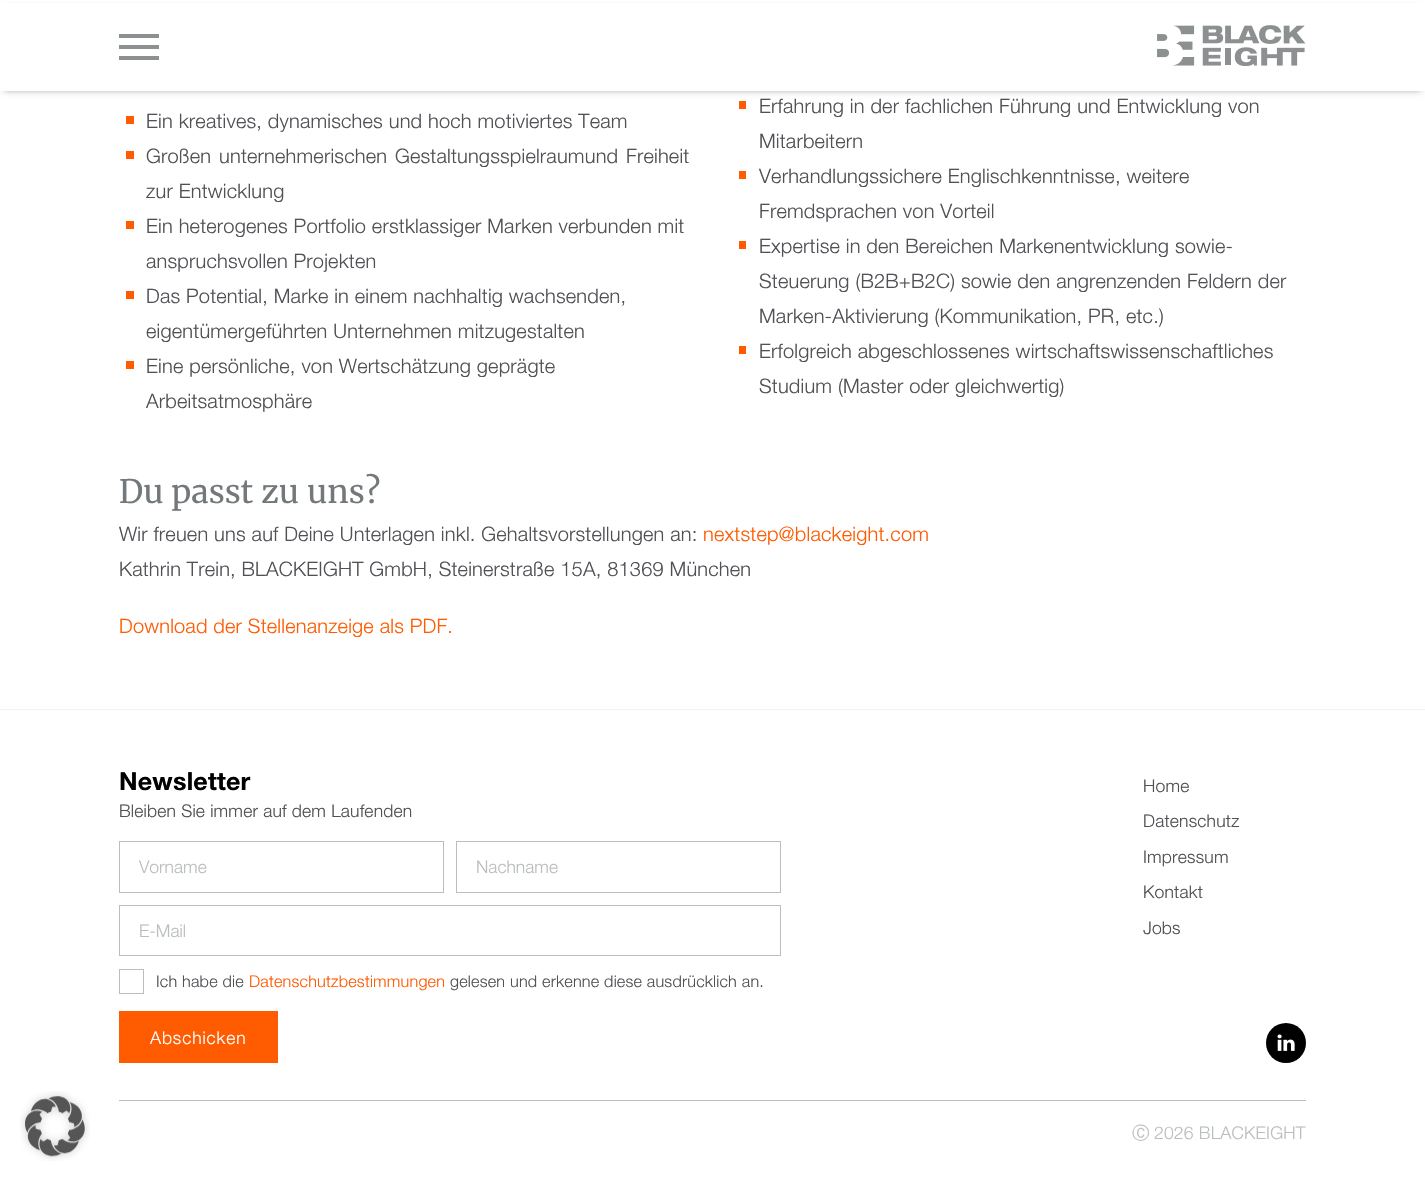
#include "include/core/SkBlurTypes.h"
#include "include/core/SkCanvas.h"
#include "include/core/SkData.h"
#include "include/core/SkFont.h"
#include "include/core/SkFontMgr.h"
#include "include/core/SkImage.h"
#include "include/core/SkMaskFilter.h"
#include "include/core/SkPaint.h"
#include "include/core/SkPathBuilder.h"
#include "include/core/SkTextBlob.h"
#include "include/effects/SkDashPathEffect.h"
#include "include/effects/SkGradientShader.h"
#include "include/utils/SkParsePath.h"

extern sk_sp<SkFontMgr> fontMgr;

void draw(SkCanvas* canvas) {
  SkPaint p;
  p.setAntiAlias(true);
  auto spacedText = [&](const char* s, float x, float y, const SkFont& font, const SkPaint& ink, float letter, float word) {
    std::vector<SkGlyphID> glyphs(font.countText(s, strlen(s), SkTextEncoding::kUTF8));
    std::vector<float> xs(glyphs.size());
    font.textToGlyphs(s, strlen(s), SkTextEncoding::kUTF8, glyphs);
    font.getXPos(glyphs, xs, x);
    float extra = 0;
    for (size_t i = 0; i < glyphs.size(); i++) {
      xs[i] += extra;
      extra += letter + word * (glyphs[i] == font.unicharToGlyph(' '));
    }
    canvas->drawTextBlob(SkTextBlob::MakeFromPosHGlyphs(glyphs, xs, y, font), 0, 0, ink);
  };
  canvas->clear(SK_ColorWHITE);
  canvas->drawImageRect(SkImages::DeferredFromEncodedData(SkData::MakeFromFileName("images/1.png")), SkRect::MakeLTRB(20, 1091, 90, 1161), SkSamplingOptions());
  p.setColor(SkColorSetARGB(77, 0, 0, 0));
  p.setMaskFilter(SkMaskFilter::MakeBlur(kNormal_SkBlurStyle, 3));
  canvas->drawRect(SkRect::MakeLTRB(4, 8, 1421, 91), p);
  p.setMaskFilter(nullptr);
  p.setColor(SK_ColorWHITE);
  canvas->drawRect(SkRect::MakeLTRB(0, 3, 1425, 91), p);
  p.setColor(SkColorSetRGB(140, 144, 145));
  canvas->drawRect(SkRect::MakeLTRB(119, 34, 159, 38), p);
  canvas->drawRect(SkRect::MakeLTRB(119, 45, 159, 49), p);
  canvas->drawRect(SkRect::MakeLTRB(119, 56, 159, 60), p);
  canvas->drawImageRect(SkImages::DeferredFromEncodedData(SkData::MakeFromFileName("images/2.png")), SkRect::MakeLTRB(1157, 25, 1306, 66), SkSamplingOptions());
  p.setColor(SkColorSetRGB(255, 91, 0));
  canvas->drawRect(SkRect::MakeLTRB(126, 116, 134, 124), p);
  canvas->drawRect(SkRect::MakeLTRB(126, 151, 134, 159), p);
  canvas->drawRect(SkRect::MakeLTRB(126, 221, 134, 229), p);
  canvas->drawRect(SkRect::MakeLTRB(126, 291, 134, 299), p);
  canvas->drawRect(SkRect::MakeLTRB(126, 361, 134, 369), p);
  canvas->drawRect(SkRect::MakeLTRB(739, 101, 746, 109), p);
  canvas->drawRect(SkRect::MakeLTRB(739, 171, 746, 179), p);
  canvas->drawRect(SkRect::MakeLTRB(739, 241, 746, 249), p);
  canvas->drawRect(SkRect::MakeLTRB(739, 346, 746, 354), p);
  p.setColor(SkColorSetRGB(242, 242, 242));
  canvas->drawRect(SkRect::MakeLTRB(0, 709, 1425, 710), p);
  p.setStyle(SkPaint::kStroke_Style);
  p.setStrokeWidth(1);
  p.setColor(SkColorSetRGB(187, 190, 191));
  canvas->drawRect(SkRect::MakeLTRB(119.5f, 841.5f, 443.5f, 892.5f), p);
  canvas->drawRect(SkRect::MakeLTRB(456.5f, 841.5f, 780.5f, 892.5f), p);
  canvas->drawRect(SkRect::MakeLTRB(119.5f, 905.5f, 780.5f, 955.5f), p);
  canvas->drawRect(SkRect::MakeLTRB(119.5f, 969.5f, 143.5f, 993.5f), p);
  p.setStyle(SkPaint::kFill_Style);
  p.setColor(SkColorSetRGB(255, 91, 0));
  canvas->drawRect(SkRect::MakeLTRB(119, 1011, 278, 1063), p);
  p.setColor(SK_ColorBLACK);
  canvas->drawCircle(1286, 1043, 20, p);
  canvas->drawImageRect(SkImages::DeferredFromEncodedData(SkData::MakeFromFileName("images/3.png")), SkRect::MakeLTRB(1277, 1034, 1295, 1051), SkSamplingOptions());
  p.setColor(SkColorSetRGB(187, 190, 191));
  canvas->drawRect(SkRect::MakeLTRB(119, 1100, 1306, 1101), p);
  SkFont font1(fontMgr->matchFamilyStyle("Helvetica Neue", SkFontStyle(300, SkFontStyle::kNormal_Width, SkFontStyle::kUpright_Slant)), 20);
  font1.setSubpixel(true);
  p.setColor(SkColorSetRGB(80, 80, 85));
  spacedText("Ein kreatives, dynamisches und hoch motiviertes Team", 146, 128, font1, p, 0.2f, 0);
  spacedText("Großen unternehmerischen Gestaltungsspielraumund Freiheit", 146, 163, font1, p, 0.2f, 2);
  spacedText("zur Entwicklung", 146, 198, font1, p, 0.2f, 0);
  spacedText("Ein heterogenes Portfolio erstklassiger Marken verbunden mit", 146, 233, font1, p, 0.2f, 0);
  spacedText("anspruchsvollen Projekten", 146, 268, font1, p, 0.2f, 0);
  spacedText("Das Potential, Marke in einem nachhaltig wachsenden,", 146, 303, font1, p, 0.2f, 0);
  spacedText("eigentümergeführten Unternehmen mitzugestalten", 146, 338, font1, p, 0.2f, 0);
  spacedText("Eine persönliche, von Wertschätzung geprägte", 146, 373, font1, p, 0.2f, 0);
  spacedText("Arbeitsatmosphäre", 146, 408, font1, p, 0.2f, 0);
  spacedText("Erfahrung in der fachlichen Führung und Entwicklung von", 759, 113, font1, p, 0.2f, 0);
  spacedText("Mitarbeitern", 759, 148, font1, p, 0.2f, 0);
  spacedText("Verhandlungssichere Englischkenntnisse, weitere", 759, 183, font1, p, 0.2f, 0);
  spacedText("Fremdsprachen von Vorteil", 759, 218, font1, p, 0.2f, 0);
  spacedText("Expertise in den Bereichen Markenentwicklung sowie-", 759, 253, font1, p, 0.2f, 0);
  spacedText("Steuerung (B2B+B2C) sowie den angrenzenden Feldern der", 759, 288, font1, p, 0.2f, 0);
  spacedText("Marken-Aktivierung (Kommunikation, PR, etc.)", 759, 323, font1, p, 0.2f, 0);
  spacedText("Erfolgreich abgeschlossenes wirtschaftswissenschaftliches", 759, 358, font1, p, 0.2f, 0);
  spacedText("Studium (Master oder gleichwertig)", 759, 393, font1, p, 0.2f, 0);
  SkFont font2(fontMgr->matchFamilyStyle("Merriweather", SkFontStyle::Normal()), 32.25f);
  font2.setSubpixel(true);
  p.setColor(SkColorSetRGB(115, 120, 122));
  spacedText("Du passt zu uns?", 119, 503, font2, p, 0.3f, 0);
  p.setColor(SkColorSetRGB(80, 80, 85));
  spacedText("Wir freuen uns auf Deine Unterlagen inkl. Gehaltsvorstellungen an:", 119, 541, font1, p, 0.2f, 0);
  p.setColor(SkColorSetRGB(255, 91, 0));
  spacedText("nextstep@blackeight.com", 703, 541, font1, p, 0.2f, 0);
  p.setColor(SkColorSetRGB(80, 80, 85));
  spacedText("Kathrin Trein, BLACKEIGHT GmbH, Steinerstraße 15A, 81369 München", 119, 576, font1, p, 0.2f, 0);
  p.setColor(SkColorSetRGB(255, 91, 0));
  spacedText("Download der Stellenanzeige als PDF.", 119, 633, font1, p, 0.2f, 0);
  SkFont font3(fontMgr->matchFamilyStyle("Helvetica Neue", SkFontStyle::Bold()), 25);
  font3.setSubpixel(true);
  p.setColor(SK_ColorBLACK);
  spacedText("Newsletter", 119, 790, font3, p, 0.25f, 0);
  SkFont font4(fontMgr->matchFamilyStyle("Helvetica Neue", SkFontStyle(300, SkFontStyle::kNormal_Width, SkFontStyle::kUpright_Slant)), 17.5f);
  font4.setSubpixel(true);
  p.setColor(SkColorSetRGB(80, 80, 85));
  spacedText("Bleiben Sie immer auf dem Laufenden", 119, 817, font4, p, 0.2f, 0);
  p.setColor(SkColorSetRGB(187, 190, 191));
  canvas->drawString("Vorname", 139, 873, font4, p);
  canvas->drawString("Nachname", 476, 873, font4, p);
  canvas->drawString("E-Mail", 139, 937, font4, p);
  SkFont font5(fontMgr->matchFamilyStyle("Helvetica Neue", SkFontStyle(300, SkFontStyle::kNormal_Width, SkFontStyle::kUpright_Slant)), 16.25f);
  font5.setSubpixel(true);
  p.setColor(SkColorSetRGB(80, 80, 85));
  spacedText("Ich habe die", 156, 987, font5, p, 0.2f, 0);
  p.setColor(SkColorSetRGB(255, 91, 0));
  spacedText("Datenschutzbestimmungen", 249, 987, font5, p, 0.2f, 0);
  p.setColor(SkColorSetRGB(80, 80, 85));
  spacedText("gelesen und erkenne diese ausdrücklich an.", 450, 987, font5, p, 0.2f, 0);
  p.setColor(SK_ColorWHITE);
  spacedText("Abschicken", 150, 1044, font4, p, 0.9f, 0);
  p.setColor(SkColorSetRGB(80, 80, 85));
  spacedText("Home", 1143, 792, font4, p, 0.2f, 0);
  spacedText("Datenschutz", 1143, 827, font4, p, 0.2f, 0);
  spacedText("Impressum", 1143, 863, font4, p, 0.2f, 0);
  spacedText("Kontakt", 1143, 898, font4, p, 0.2f, 0);
  spacedText("Jobs", 1143, 934, font4, p, 0.2f, 0);
  SkFont font6(fontMgr->matchFamilyStyle("WenQuanYi Zen Hei", SkFontStyle(500, SkFontStyle::kNormal_Width, SkFontStyle::kUpright_Slant)), 17.5f);
  font6.setSubpixel(true);
  p.setColor(SkColorSetRGB(187, 190, 191));
  spacedText("Ⓒ", 1132, 1139, font6, p, 0.2f, 0);
  spacedText("2026 BLACKEIGHT", 1154, 1139, font4, p, 0.2f, 0);
}
